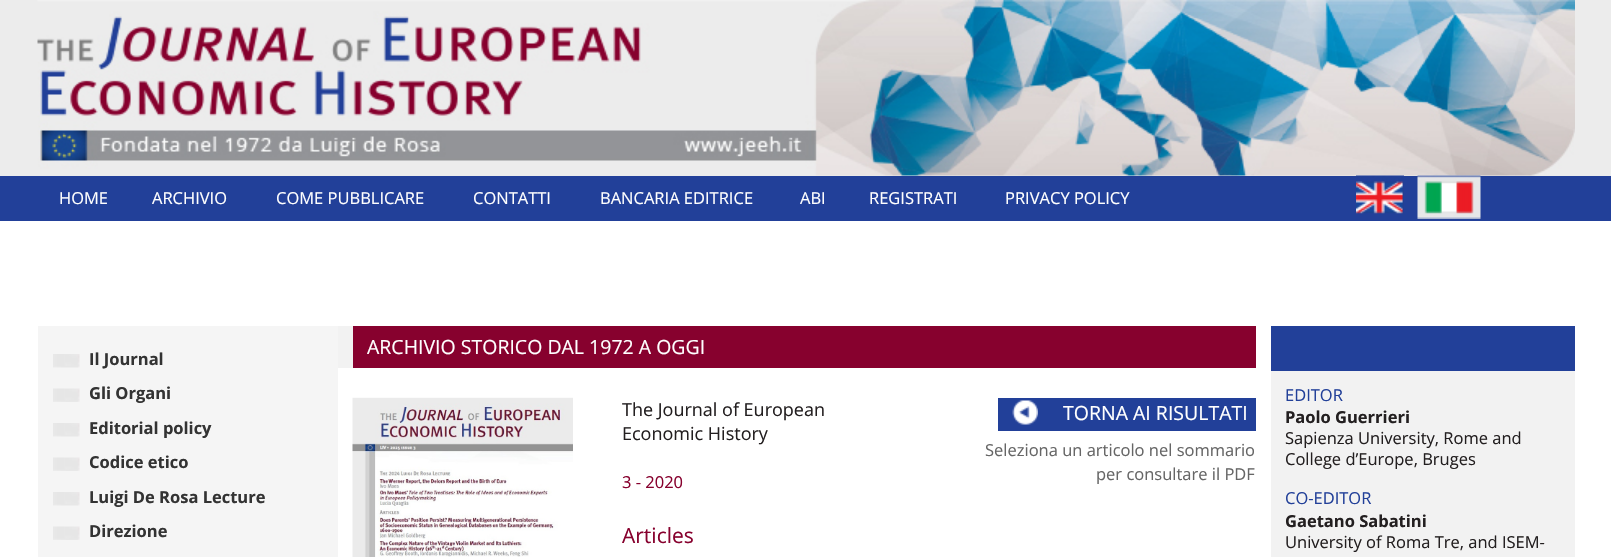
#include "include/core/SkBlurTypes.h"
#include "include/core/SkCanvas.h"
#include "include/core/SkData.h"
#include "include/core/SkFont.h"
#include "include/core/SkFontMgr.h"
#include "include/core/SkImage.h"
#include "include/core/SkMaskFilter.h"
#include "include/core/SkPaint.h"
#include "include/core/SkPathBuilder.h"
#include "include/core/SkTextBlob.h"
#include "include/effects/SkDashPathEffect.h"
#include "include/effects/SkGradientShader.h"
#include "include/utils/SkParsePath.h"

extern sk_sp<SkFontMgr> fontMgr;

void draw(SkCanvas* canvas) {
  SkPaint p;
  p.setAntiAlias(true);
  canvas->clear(SK_ColorWHITE);
  p.setColor(SkColorSetRGB(236, 236, 236));
  canvas->drawRect(SkRect::MakeLTRB(0, 0, 1611, 176), p);
  canvas->drawImageRect(SkImages::DeferredFromEncodedData(SkData::MakeFromFileName("images/1.png")), SkRect::MakeLTRB(37, 0, 1575, 176), SkSamplingOptions());
  p.setColor(SkColorSetRGB(34, 64, 153));
  canvas->drawRect(SkRect::MakeLTRB(0, 176, 1611, 221), p);
  canvas->drawImageRect(SkImages::DeferredFromEncodedData(SkData::MakeFromFileName("images/2.png")), SkRect::MakeLTRB(1356, 175, 1404, 214), SkSamplingOptions());
  canvas->drawImageRect(SkImages::DeferredFromEncodedData(SkData::MakeFromFileName("images/3.png")), SkRect::MakeLTRB(1417, 175, 1481, 219), SkSamplingOptions());
  p.setColor(SkColorSetRGB(245, 245, 245));
  canvas->drawRect(SkRect::MakeLTRB(38, 326, 338, 557), p);
  canvas->drawImageRect(SkImages::DeferredFromEncodedData(SkData::MakeFromFileName("images/4.png")), SkRect::MakeLTRB(53, 354, 80, 368), SkSamplingOptions());
  canvas->drawImageRect(SkImages::DeferredFromEncodedData(SkData::MakeFromFileName("images/5.png")), SkRect::MakeLTRB(53, 388, 80, 402), SkSamplingOptions());
  canvas->drawImageRect(SkImages::DeferredFromEncodedData(SkData::MakeFromFileName("images/4.png")), SkRect::MakeLTRB(53, 423, 80, 437), SkSamplingOptions());
  canvas->drawImageRect(SkImages::DeferredFromEncodedData(SkData::MakeFromFileName("images/5.png")), SkRect::MakeLTRB(53, 457, 80, 471), SkSamplingOptions());
  canvas->drawImageRect(SkImages::DeferredFromEncodedData(SkData::MakeFromFileName("images/4.png")), SkRect::MakeLTRB(53, 492, 80, 506), SkSamplingOptions());
  canvas->drawImageRect(SkImages::DeferredFromEncodedData(SkData::MakeFromFileName("images/5.png")), SkRect::MakeLTRB(53, 526, 80, 540), SkSamplingOptions());
  p.setColor(SkColorSetRGB(242, 242, 242));
  canvas->drawRect(SkRect::MakeLTRB(338, 326, 353, 368), p);
  p.setColor(SkColorSetRGB(135, 1, 46));
  canvas->drawRect(SkRect::MakeLTRB(353, 326, 1256, 368), p);
  canvas->drawImageRect(SkImages::DeferredFromEncodedData(SkData::MakeFromFileName("images/6.png")), SkRect::MakeLTRB(352, 397, 573, 557), SkSamplingOptions());
  p.setColor(SkColorSetRGB(34, 64, 153));
  canvas->drawRect(SkRect::MakeLTRB(998, 398, 1256, 431), p);
  canvas->drawImageRect(SkImages::DeferredFromEncodedData(SkData::MakeFromFileName("images/7.png")), SkRect::MakeLTRB(1012, 400, 1038, 425), SkSamplingOptions());
  canvas->drawRect(SkRect::MakeLTRB(1271, 326, 1575, 371), p);
  p.setColor(SkColorSetRGB(242, 242, 242));
  canvas->drawRect(SkRect::MakeLTRB(1271, 371, 1575, 557), p);
  SkFont font1(fontMgr->matchFamilyStyle("Open Sans", SkFontStyle::Normal()), 16.5f);
  font1.setSubpixel(true);
  p.setColor(SK_ColorWHITE);
  canvas->drawString("HOME", 59, 204, font1, p);
  canvas->drawString("ARCHIVIO", 152, 204, font1, p);
  canvas->drawString("COME PUBBLICARE", 276, 204, font1, p);
  canvas->drawString("CONTATTI", 473, 204, font1, p);
  canvas->drawString("BANCARIA EDITRICE", 600, 204, font1, p);
  canvas->drawString("ABI", 800, 204, font1, p);
  canvas->drawString("REGISTRATI", 869, 204, font1, p);
  canvas->drawString("PRIVACY POLICY", 1005, 204, font1, p);
  SkFont font2(fontMgr->matchFamilyStyle("Open Sans", SkFontStyle::Bold()), 16.5f);
  font2.setSubpixel(true);
  p.setColor(SkColorSetRGB(51, 51, 51));
  canvas->drawString("Il Journal", 89, 365, font2, p);
  canvas->drawString("Gli Organi", 89, 399, font2, p);
  canvas->drawString("Editorial policy", 89, 434, font2, p);
  canvas->drawString("Codice etico", 89, 468, font2, p);
  canvas->drawString("Luigi De Rosa Lecture", 89, 503, font2, p);
  canvas->drawString("Direzione", 89, 537, font2, p);
  SkFont font3(fontMgr->matchFamilyStyle("Open Sans", SkFontStyle::Normal()), 19.5f);
  font3.setSubpixel(true);
  p.setColor(SK_ColorWHITE);
  canvas->drawString("ARCHIVIO STORICO DAL 1972 A OGGI", 367, 354, font3, p);
  SkFont font4(fontMgr->matchFamilyStyle("Open Sans", SkFontStyle::Normal()), 18);
  font4.setSubpixel(true);
  p.setColor(SkColorSetRGB(35, 31, 32));
  canvas->drawString("The Journal of European", 622, 416, font4, p);
  canvas->drawString("Economic History", 622, 440, font4, p);
  p.setColor(SkColorSetRGB(135, 1, 46));
  canvas->drawString("3 - 2020", 622, 488, font1, p);
  p.setColor(SK_ColorWHITE);
  canvas->drawString("TORNA AI RISULTATI", 1063, 420, font3, p);
  p.setColor(SkColorSetRGB(102, 102, 102));
  canvas->drawString("Seleziona un articolo nel sommario", 985, 456, font1, p);
  canvas->drawString("per consultare il PDF", 1096, 480, font1, p);
  SkFont font5(fontMgr->matchFamilyStyle("Open Sans", SkFontStyle::Normal()), 21);
  font5.setSubpixel(true);
  p.setColor(SkColorSetRGB(135, 1, 46));
  canvas->drawString("Articles", 622, 543, font5, p);
  p.setColor(SkColorSetRGB(34, 64, 153));
  canvas->drawString("EDITOR", 1285, 401, font1, p);
  p.setColor(SkColorSetRGB(35, 31, 32));
  canvas->drawString("Paolo Guerrieri", 1285, 423, font2, p);
  canvas->drawString("Sapienza University, Rome and", 1285, 444, font1, p);
  canvas->drawString("College d’Europe, Bruges", 1285, 465, font1, p);
  p.setColor(SkColorSetRGB(34, 64, 153));
  canvas->drawString("CO-EDITOR", 1285, 504, font1, p);
  p.setColor(SkColorSetRGB(35, 31, 32));
  canvas->drawString("Gaetano Sabatini", 1285, 527, font2, p);
  canvas->drawString("University of Roma Tre, and ISEM-", 1285, 548, font1, p);
}
